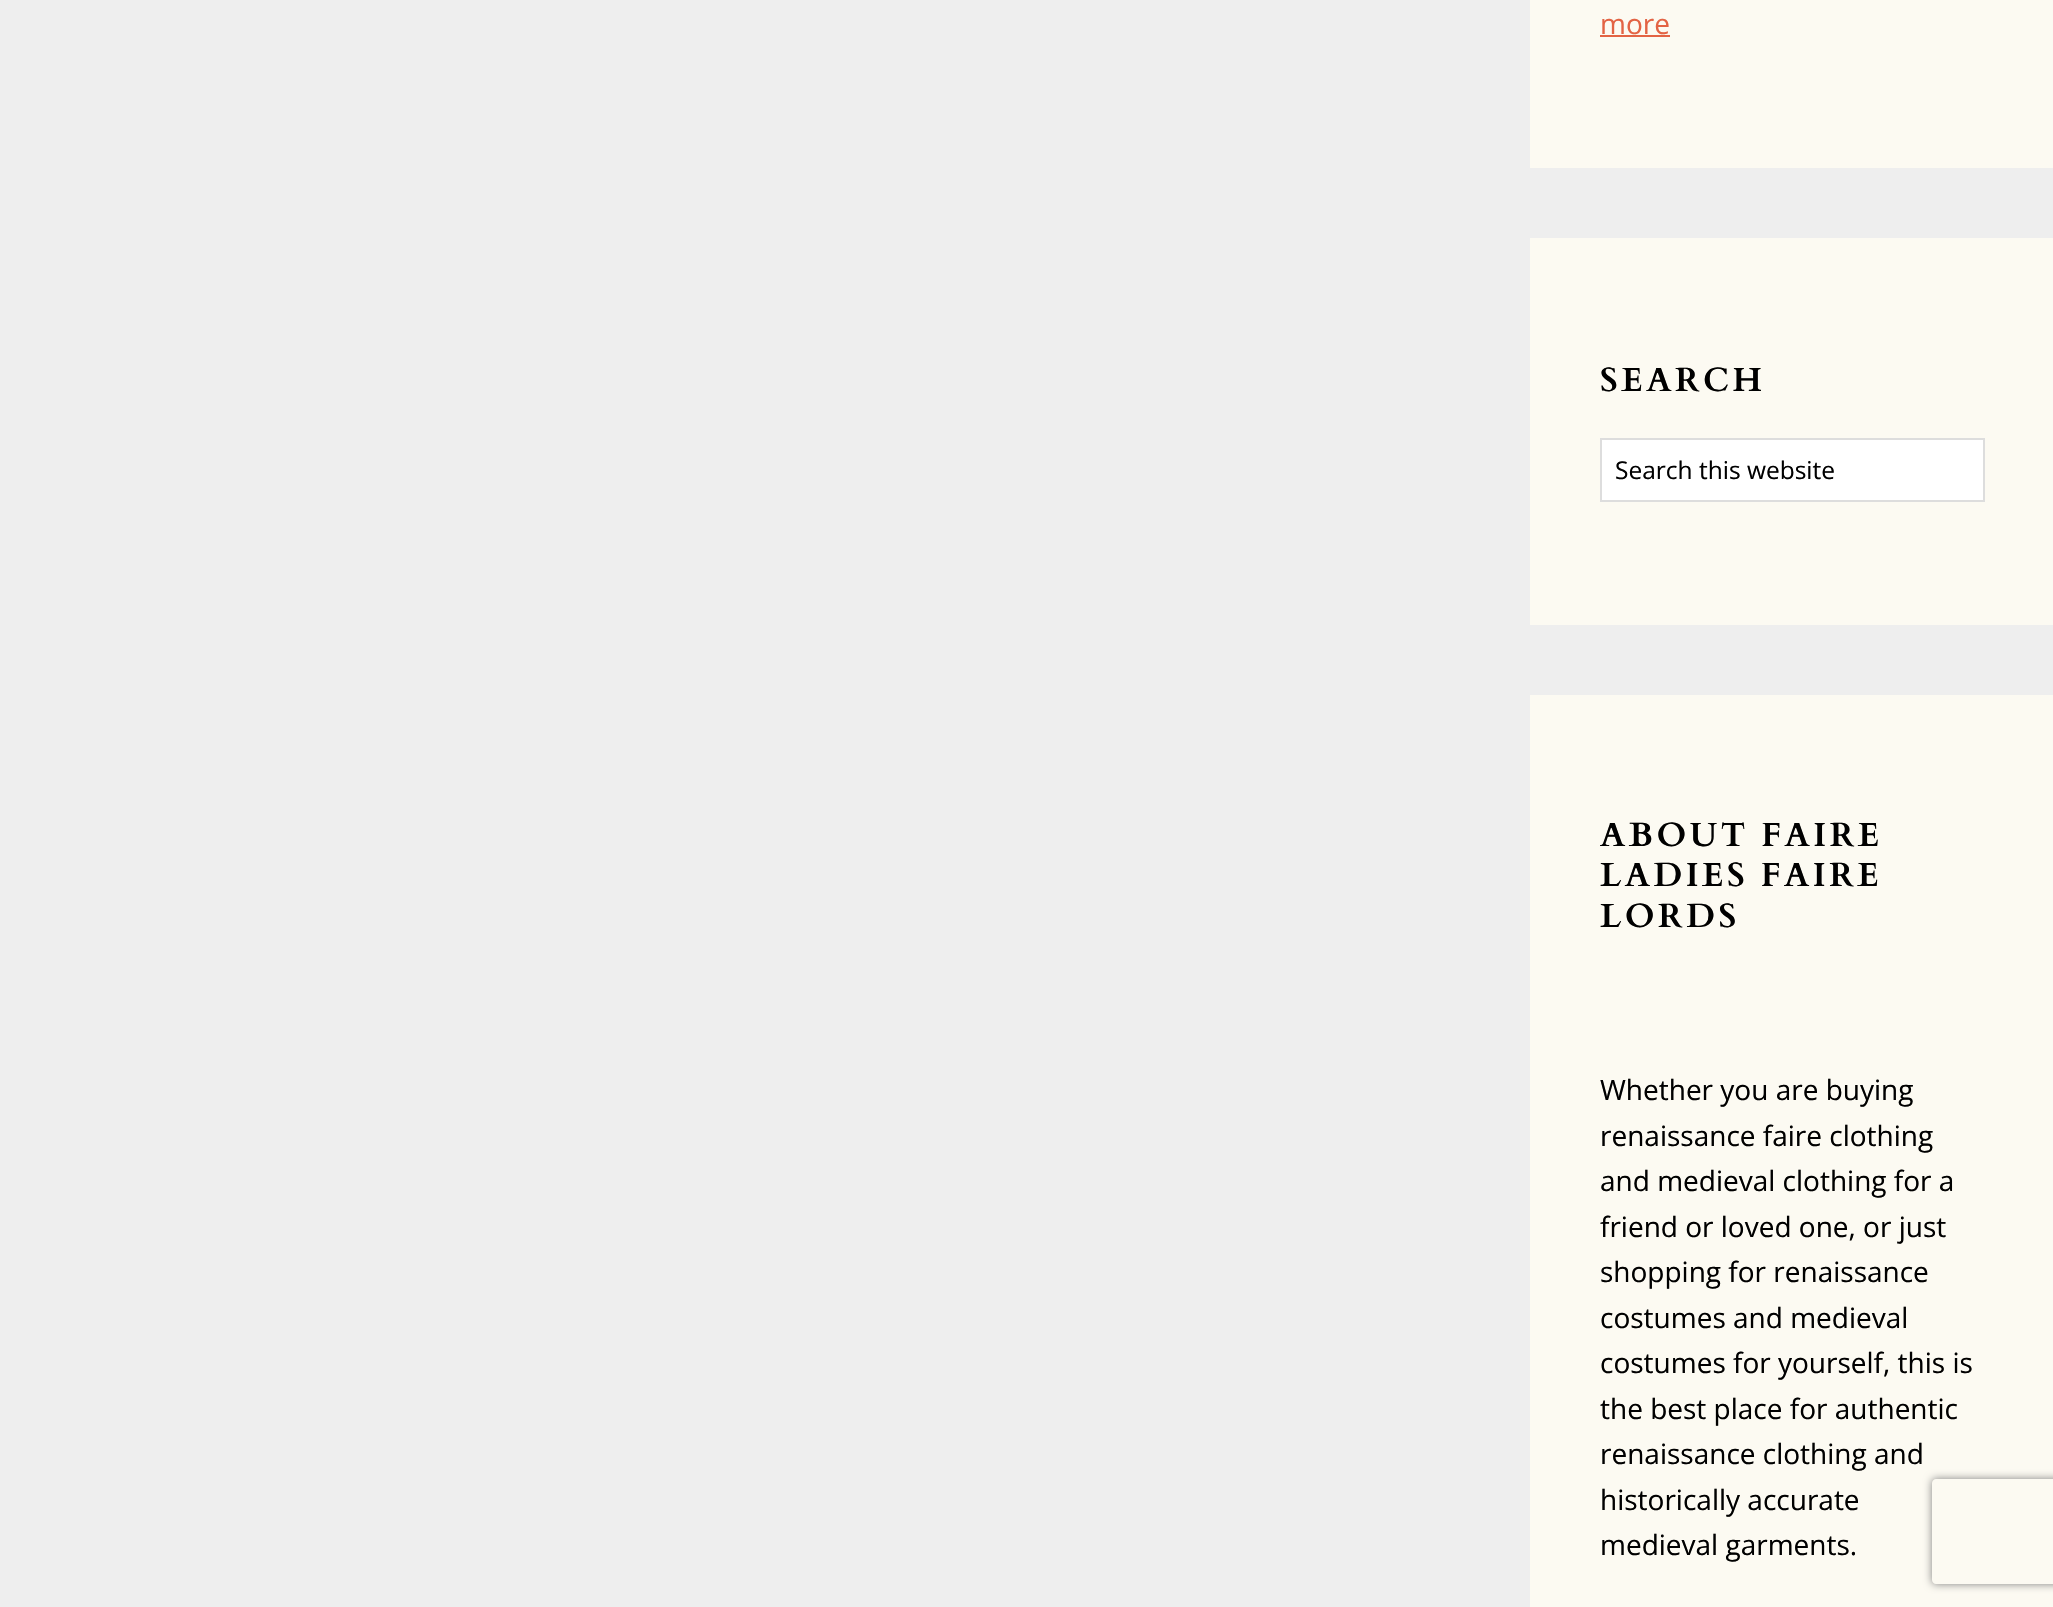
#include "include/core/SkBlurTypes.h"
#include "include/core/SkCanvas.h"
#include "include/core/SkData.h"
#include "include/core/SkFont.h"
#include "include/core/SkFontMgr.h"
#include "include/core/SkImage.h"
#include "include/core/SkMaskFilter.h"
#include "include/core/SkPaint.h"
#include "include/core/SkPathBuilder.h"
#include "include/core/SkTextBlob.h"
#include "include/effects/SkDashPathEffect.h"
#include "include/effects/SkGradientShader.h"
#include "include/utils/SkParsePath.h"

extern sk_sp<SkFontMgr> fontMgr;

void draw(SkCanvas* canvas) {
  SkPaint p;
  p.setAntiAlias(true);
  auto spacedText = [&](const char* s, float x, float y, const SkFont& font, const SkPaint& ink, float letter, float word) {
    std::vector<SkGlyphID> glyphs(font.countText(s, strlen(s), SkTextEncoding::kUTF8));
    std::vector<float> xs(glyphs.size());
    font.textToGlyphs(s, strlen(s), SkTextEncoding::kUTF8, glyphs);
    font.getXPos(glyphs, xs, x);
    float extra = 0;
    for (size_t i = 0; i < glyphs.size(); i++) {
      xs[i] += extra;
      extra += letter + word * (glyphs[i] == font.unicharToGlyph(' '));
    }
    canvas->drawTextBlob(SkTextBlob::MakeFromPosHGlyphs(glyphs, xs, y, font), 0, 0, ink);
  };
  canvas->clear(SkColorSetRGB(238, 238, 238));
  p.setColor(SkColorSetRGB(252, 250, 242));
  canvas->drawRect(SkRect::MakeLTRB(1530, 0, 2053, 168), p);
  p.setColor(SkColorSetRGB(227, 99, 68));
  canvas->drawRect(SkRect::MakeLTRB(1600, 35, 1670, 37), p);
  p.setColor(SkColorSetRGB(252, 250, 242));
  canvas->drawRect(SkRect::MakeLTRB(1530, 238, 2053, 625), p);
  p.setColor(SK_ColorWHITE);
  canvas->drawRect(SkRect::MakeLTRB(1601, 439, 1984, 501), p);
  p.setStyle(SkPaint::kStroke_Style);
  p.setStrokeWidth(2);
  p.setColor(SkColorSetRGB(221, 221, 221));
  canvas->drawRect(SkRect::MakeLTRB(1601, 439, 1984, 501), p);
  p.setStyle(SkPaint::kFill_Style);
  p.setColor(SkColorSetRGB(252, 250, 242));
  canvas->drawRect(SkRect::MakeLTRB(1530, 695, 2053, 1607), p);
  canvas->save();
  canvas->clipPath(SkPathBuilder(SkPathFillType::kEvenOdd).moveTo(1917, 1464).lineTo(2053, 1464).lineTo(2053, 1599).lineTo(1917, 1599).close().moveTo(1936, 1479).lineTo(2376, 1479).cubicTo(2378, 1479, 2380, 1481, 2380, 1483).lineTo(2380, 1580).cubicTo(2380, 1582, 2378, 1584, 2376, 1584).lineTo(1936, 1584).cubicTo(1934, 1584, 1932, 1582, 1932, 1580).lineTo(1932, 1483).cubicTo(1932, 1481, 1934, 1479, 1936, 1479).close().detach(), true);
  p.setColor(SkColorSetRGB(128, 128, 128));
  p.setMaskFilter(SkMaskFilter::MakeBlur(kNormal_SkBlurStyle, 4.5f));
  canvas->drawRoundRect(SkRect::MakeLTRB(1932, 1479, 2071, 1584), 4, 4, p);
  p.setMaskFilter(nullptr);
  canvas->restore();
  SkFont font1(fontMgr->matchFamilyStyle("Open Sans", SkFontStyle::Normal()), 28);
  font1.setSubpixel(true);
  p.setColor(SkColorSetRGB(227, 99, 68));
  canvas->drawString("more", 1600, 34, font1, p);
  SkFont font2(fontMgr->matchFamilyStyle("Cardo", SkFontStyle::Bold()), 33.5f);
  font2.setSubpixel(true);
  p.setColor(SK_ColorBLACK);
  spacedText("SEARCH", 1600, 391, font2, p, 3.5f, 0);
  SkFont font3(fontMgr->matchFamilyStyle("Open Sans", SkFontStyle::Normal()), 24.5f);
  font3.setSubpixel(true);
  canvas->drawString("Search this website", 1615, 479, font3, p);
  spacedText("ABOUT FAIRE", 1600, 846, font2, p, 3.5f, 0);
  spacedText("LADIES FAIRE", 1600, 886, font2, p, 3.5f, 0);
  spacedText("LORDS", 1600, 927, font2, p, 3.5f, 0);
  canvas->drawString("Whether you are buying", 1600, 1100, font1, p);
  canvas->drawString("renaissance faire clothing", 1600, 1146, font1, p);
  canvas->drawString("and medieval clothing for a", 1600, 1191, font1, p);
  canvas->drawString("friend or loved one, or just", 1600, 1237, font1, p);
  canvas->drawString("shopping for renaissance", 1600, 1282, font1, p);
  canvas->drawString("costumes and medieval", 1600, 1328, font1, p);
  canvas->drawString("costumes for yourself, this is", 1600, 1373, font1, p);
  canvas->drawString("the best place for authentic", 1600, 1419, font1, p);
  canvas->drawString("renaissance clothing and", 1600, 1464, font1, p);
  canvas->drawString("historically accurate", 1600, 1510, font1, p);
  canvas->drawString("medieval garments.", 1600, 1555, font1, p);
}
